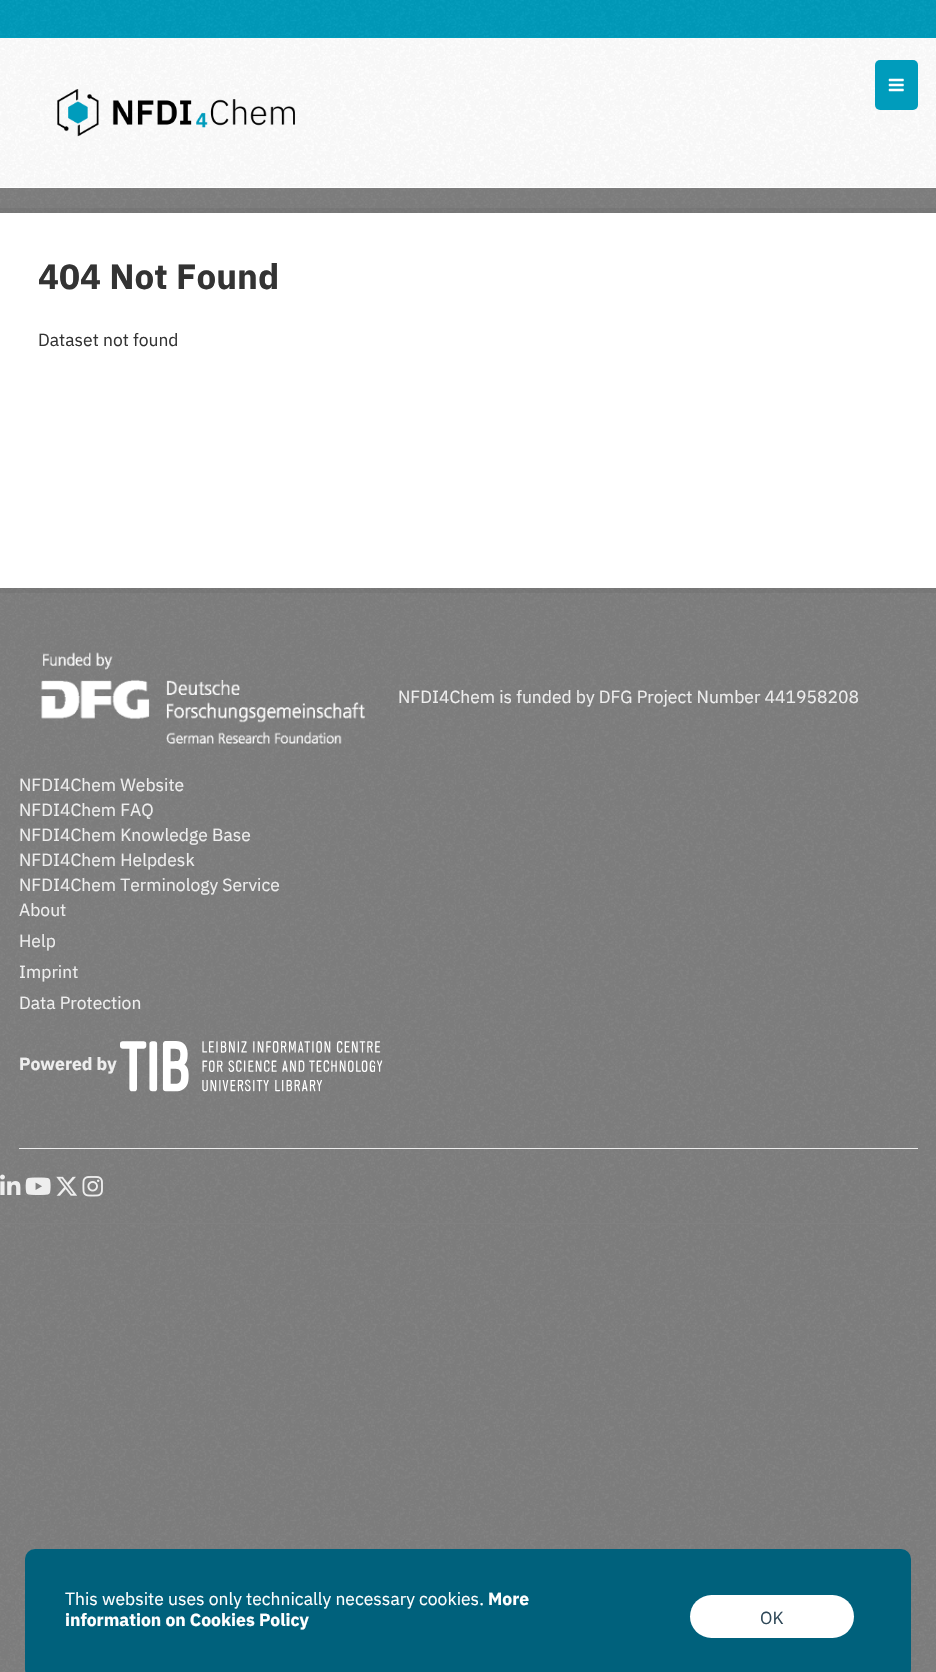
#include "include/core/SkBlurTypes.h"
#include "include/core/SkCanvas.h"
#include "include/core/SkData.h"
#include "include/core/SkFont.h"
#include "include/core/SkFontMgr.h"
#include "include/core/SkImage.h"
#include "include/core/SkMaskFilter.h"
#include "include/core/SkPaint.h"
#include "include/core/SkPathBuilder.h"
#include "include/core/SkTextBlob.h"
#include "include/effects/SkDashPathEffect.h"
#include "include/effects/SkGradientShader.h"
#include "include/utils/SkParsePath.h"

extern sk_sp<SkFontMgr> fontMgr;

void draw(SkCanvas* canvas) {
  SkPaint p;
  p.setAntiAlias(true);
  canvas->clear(SkColorSetRGB(128, 128, 128));
  canvas->drawImageRect(SkImages::DeferredFromEncodedData(SkData::MakeFromFileName("images/1.png")), SkRect::MakeLTRB(0, 188, 936, 1672), SkSamplingOptions());
  p.setColor(SkColorSetRGB(0, 156, 188));
  canvas->drawRect(SkRect::MakeLTRB(0, 0, 936, 38), p);
  canvas->drawImageRect(SkImages::DeferredFromEncodedData(SkData::MakeFromFileName("images/2.png")), SkRect::MakeLTRB(0, 0, 936, 37), SkSamplingOptions());
  p.setColor(SK_ColorWHITE);
  canvas->drawRect(SkRect::MakeLTRB(0, 38, 936, 188), p);
  canvas->drawImageRect(SkImages::DeferredFromEncodedData(SkData::MakeFromFileName("images/3.png")), SkRect::MakeLTRB(0, 38, 936, 187), SkSamplingOptions());
  canvas->drawImageRect(SkImages::DeferredFromEncodedData(SkData::MakeFromFileName("images/4.png")), SkRect::MakeLTRB(57, 89, 295, 137), SkSamplingOptions());
  p.setColor(SkColorSetRGB(0, 156, 188));
  canvas->drawRoundRect(SkRect::MakeLTRB(875, 60, 918, 110), 5, 5, p);
  canvas->drawImageRect(SkImages::DeferredFromEncodedData(SkData::MakeFromFileName("images/5.png")), SkRect::MakeLTRB(888, 78, 904, 92), SkSamplingOptions());
  p.setStyle(SkPaint::kStroke_Style);
  p.setStrokeWidth(5);
  p.setColor(SkColorSetARGB(13, 0, 0, 0));
  canvas->drawRect(SkRect::MakeLTRB(-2.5f, 210.5f, 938.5f, 590.5f), p);
  p.setStyle(SkPaint::kFill_Style);
  p.setColor(SK_ColorWHITE);
  canvas->drawRect(SkRect::MakeLTRB(0, 213, 936, 588), p);
  p.setColor(SkColorSetRGB(128, 128, 128));
  canvas->drawRect(SkRect::MakeLTRB(0, 613, 936, 1224), p);
  canvas->drawImageRect(SkImages::DeferredFromEncodedData(SkData::MakeFromFileName("images/6.png")), SkRect::MakeLTRB(0, 613, 936, 1223), SkSamplingOptions());
  canvas->drawImageRect(SkImages::DeferredFromEncodedData(SkData::MakeFromFileName("images/7.png")), SkRect::MakeLTRB(41, 652, 365, 744), SkSamplingOptions());
  canvas->drawImageRect(SkImages::DeferredFromEncodedData(SkData::MakeFromFileName("images/8.png")), SkRect::MakeLTRB(120, 1041, 383, 1092), SkSamplingOptions());
  p.setColor(SkColorSetRGB(238, 238, 238));
  canvas->drawRect(SkRect::MakeLTRB(19, 1148, 918, 1149), p);
  canvas->drawImageRect(SkImages::DeferredFromEncodedData(SkData::MakeFromFileName("images/9.png")), SkRect::MakeLTRB(0, 1174, 21, 1195), SkSamplingOptions());
  canvas->drawImageRect(SkImages::DeferredFromEncodedData(SkData::MakeFromFileName("images/10.png")), SkRect::MakeLTRB(25, 1177, 51, 1195), SkSamplingOptions());
  canvas->drawImageRect(SkImages::DeferredFromEncodedData(SkData::MakeFromFileName("images/11.png")), SkRect::MakeLTRB(56, 1176, 77, 1196), SkSamplingOptions());
  canvas->drawImageRect(SkImages::DeferredFromEncodedData(SkData::MakeFromFileName("images/12.png")), SkRect::MakeLTRB(82, 1176, 103, 1197), SkSamplingOptions());
  p.setColor(SkColorSetRGB(0, 97, 124));
  canvas->drawRoundRect(SkRect::MakeLTRB(25, 1549, 911, 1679), 10, 10, p);
  p.setColor(SK_ColorWHITE);
  canvas->drawRoundRect(SkRect::MakeLTRB(690, 1595, 854, 1638), 21.5f, 21.5f, p);
  SkFont font1(fontMgr->matchFamilyStyle("IBM Plex Sans", SkFontStyle::Bold()), 35);
  font1.setSubpixel(true);
  p.setColor(SkColorSetRGB(51, 51, 51));
  canvas->drawString("404 Not Found", 38, 289, font1, p);
  SkFont font2(fontMgr->matchFamilyStyle("IBM Plex Sans", SkFontStyle::Normal()), 17.5f);
  font2.setSubpixel(true);
  canvas->drawString("Dataset not found", 38, 346, font2, p);
  p.setColor(SkColorSetRGB(238, 238, 238));
  canvas->drawString("NFDI4Chem is funded by DFG Project Number 441958208", 398, 703, font2, p);
  canvas->drawString("NFDI4Chem Website", 19, 791, font2, p);
  canvas->drawString("NFDI4Chem FAQ", 19, 816, font2, p);
  canvas->drawString("NFDI4Chem Knowledge Base", 19, 841, font2, p);
  canvas->drawString("NFDI4Chem Helpdesk", 19, 866, font2, p);
  canvas->drawString("NFDI4Chem Terminology Service", 19, 891, font2, p);
  canvas->drawString("About", 19, 916, font2, p);
  canvas->drawString("Help", 19, 947, font2, p);
  canvas->drawString("Imprint", 19, 978, font2, p);
  canvas->drawString("Data Protection", 19, 1009, font2, p);
  SkFont font3(fontMgr->matchFamilyStyle("IBM Plex Sans", SkFontStyle::Bold()), 17.5f);
  font3.setSubpixel(true);
  canvas->drawString("Powered by", 19, 1070, font3, p);
  p.setColor(SK_ColorWHITE);
  canvas->drawString("This website uses only technically necessary cookies.", 65, 1605, font2, p);
  canvas->drawString("More", 488, 1605, font3, p);
  canvas->drawString("information on Cookies Policy", 65, 1626, font3, p);
  p.setColor(SkColorSetRGB(47, 72, 88));
  canvas->drawString("OK", 760, 1624, font2, p);
}
